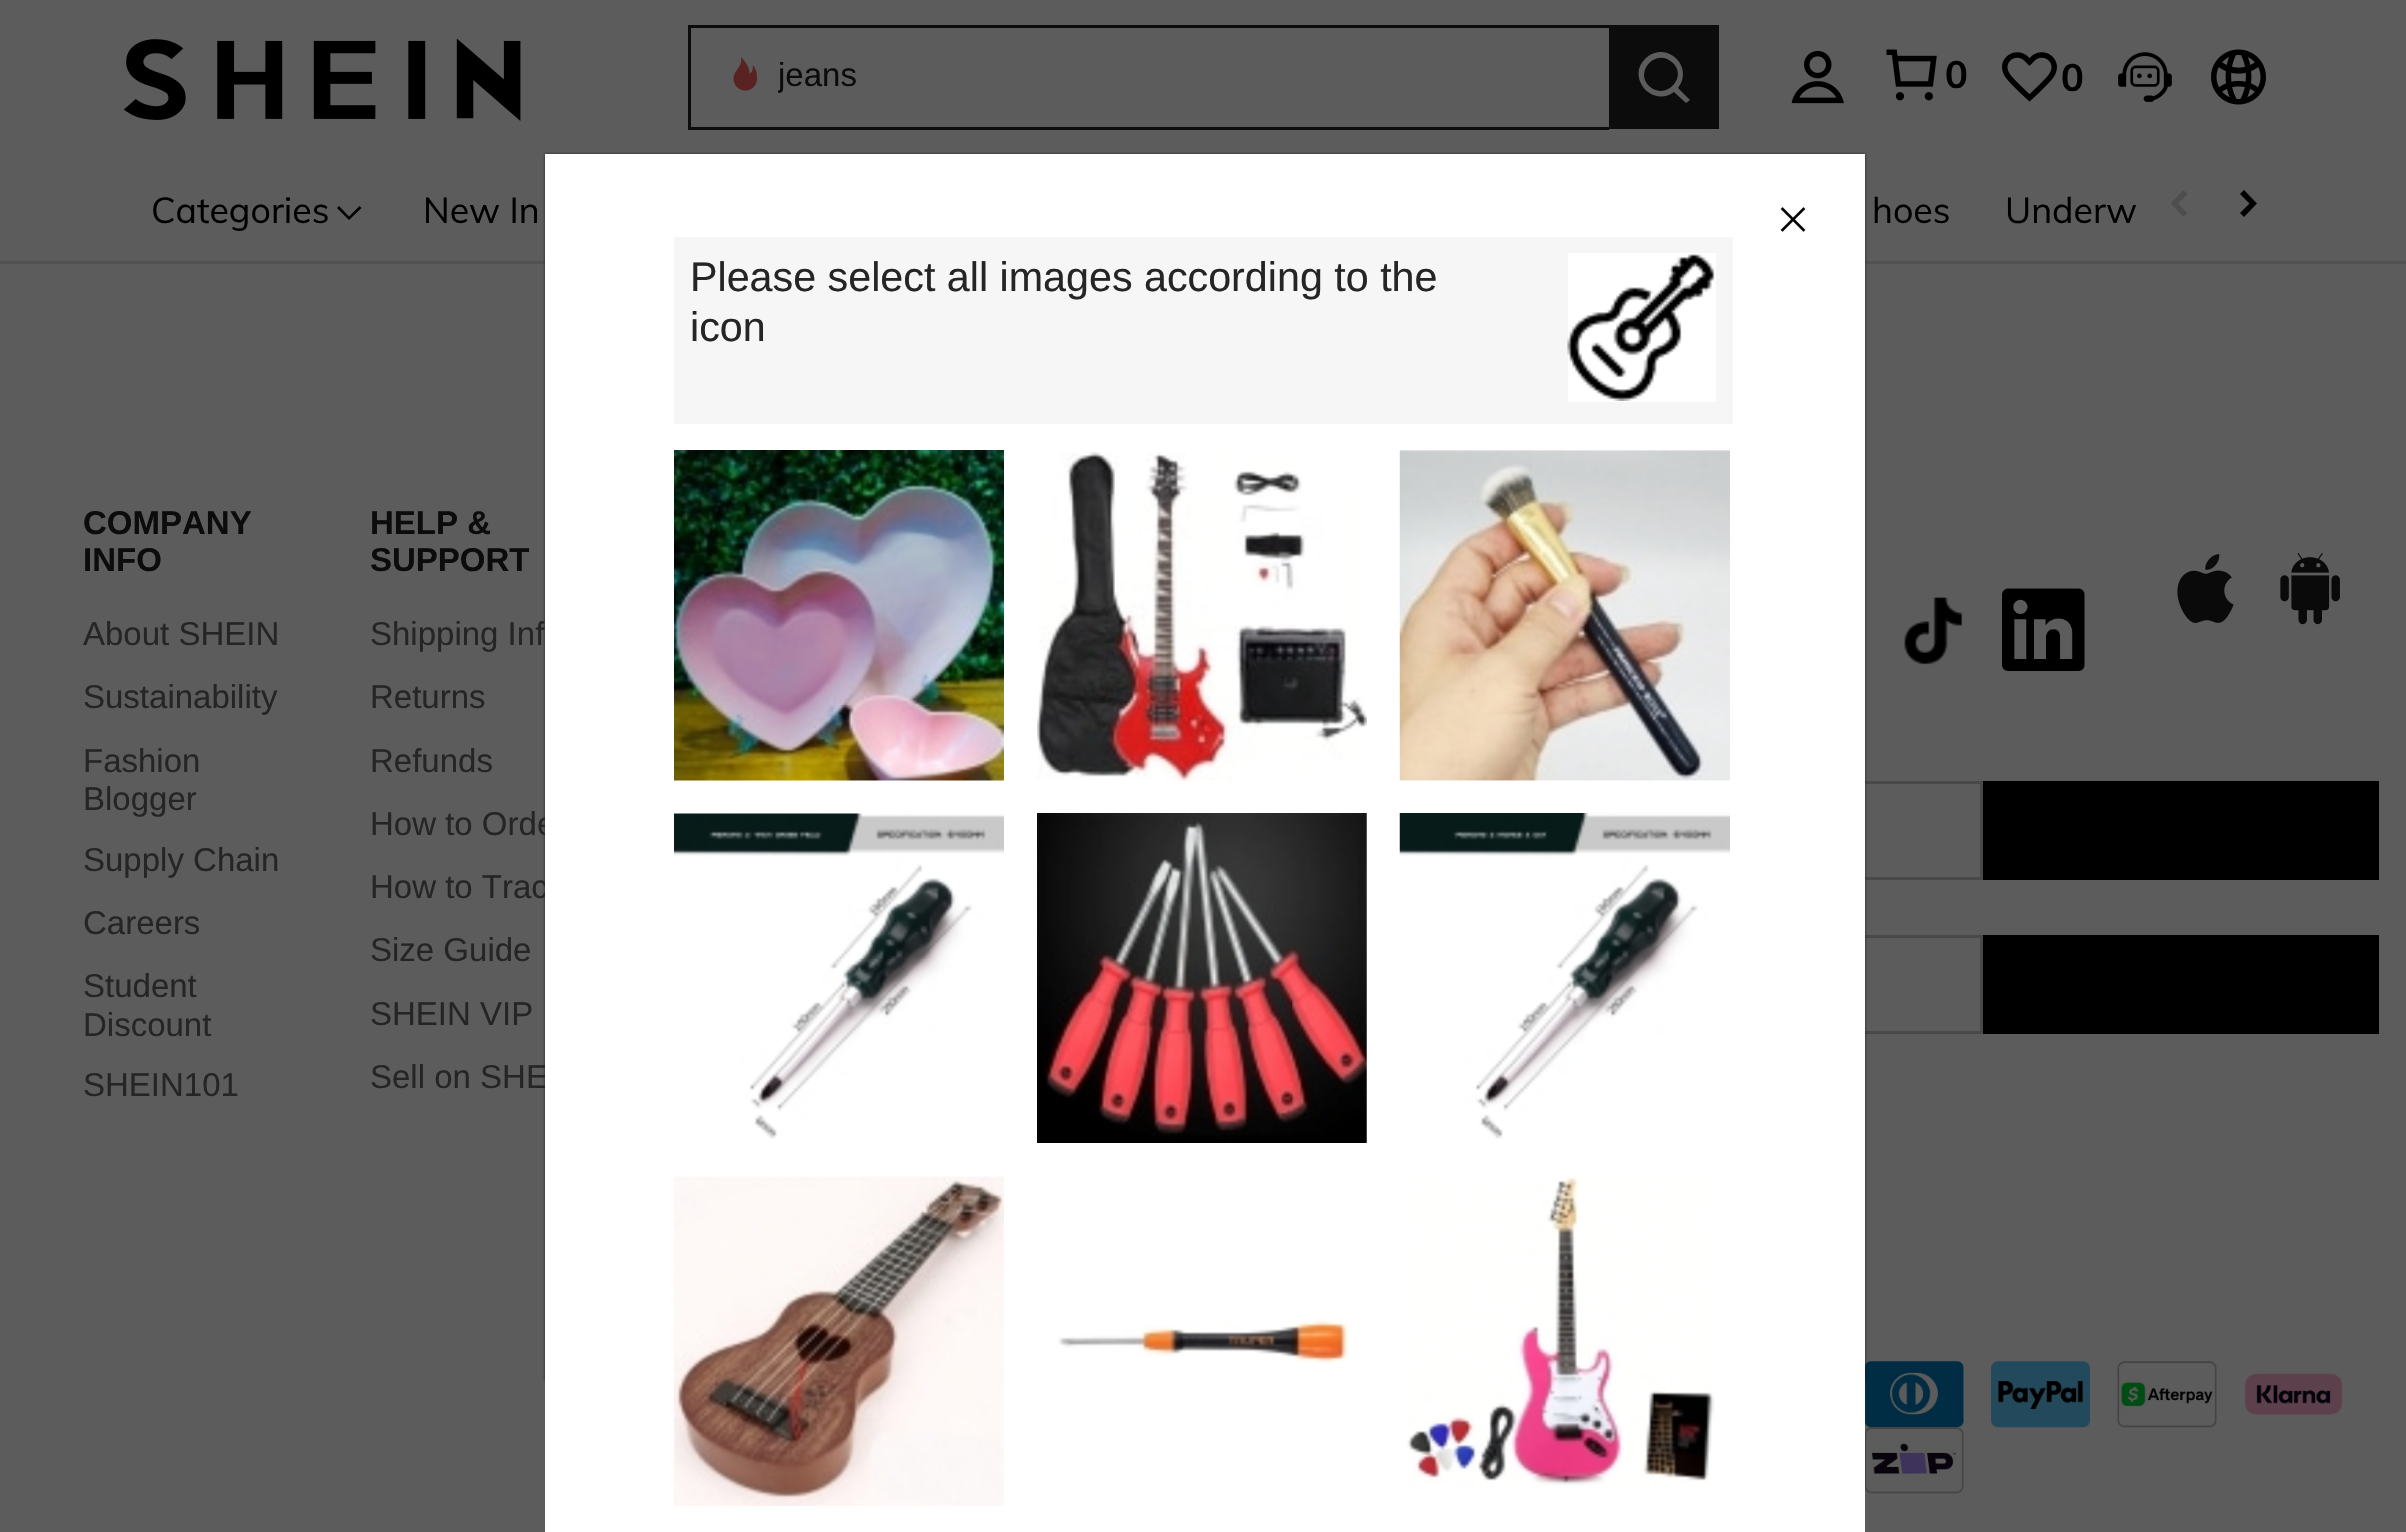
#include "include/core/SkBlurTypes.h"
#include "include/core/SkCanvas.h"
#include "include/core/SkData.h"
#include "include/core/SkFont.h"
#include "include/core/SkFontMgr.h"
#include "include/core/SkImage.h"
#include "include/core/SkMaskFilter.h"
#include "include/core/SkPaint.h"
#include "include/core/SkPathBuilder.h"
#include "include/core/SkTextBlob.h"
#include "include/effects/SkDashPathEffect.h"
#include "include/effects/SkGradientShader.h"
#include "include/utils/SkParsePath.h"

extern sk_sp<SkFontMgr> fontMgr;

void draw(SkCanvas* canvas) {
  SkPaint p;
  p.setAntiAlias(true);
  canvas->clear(SkColorSetRGB(92, 92, 92));
  canvas->drawImageRect(SkImages::DeferredFromEncodedData(SkData::MakeFromFileName("images/1.png")), SkRect::MakeLTRB(124, 39, 521, 121), SkSamplingOptions());
  p.setColor(SkColorSetRGB(12, 12, 12));
  canvas->drawRect(SkRect::MakeLTRB(688, 25, 1609, 28), p);
  canvas->drawRect(SkRect::MakeLTRB(688, 127, 1609, 130), p);
  canvas->drawRect(SkRect::MakeLTRB(688, 25, 691, 129), p);
  canvas->drawImageRect(SkImages::DeferredFromEncodedData(SkData::MakeFromFileName("images/2.png")), SkRect::MakeLTRB(733, 57, 757, 91), SkSamplingOptions());
  canvas->drawRect(SkRect::MakeLTRB(1609, 25, 1719, 129), p);
  p.setColor(SkColorSetRGB(92, 92, 92));
  canvas->drawPath(SkPathBuilder(SkPathFillType::kEvenOdd).moveTo(1645, 59).cubicTo(1665, 39, 1695, 66, 1678, 88).lineTo(1690, 100).lineTo(1686, 103).lineTo(1674, 92).cubicTo(1653, 108, 1626, 78, 1645, 59).close().moveTo(1673, 63).cubicTo(1657, 47, 1634, 71, 1649, 86).cubicTo(1665, 101, 1688, 78, 1673, 63).close().detach(), p);
  canvas->drawImageRect(SkImages::DeferredFromEncodedData(SkData::MakeFromFileName("images/3.png")), SkRect::MakeLTRB(1791, 50, 1844, 104), SkSamplingOptions());
  canvas->drawImageRect(SkImages::DeferredFromEncodedData(SkData::MakeFromFileName("images/4.png")), SkRect::MakeLTRB(1886, 49, 1937, 101), SkSamplingOptions());
  canvas->drawImageRect(SkImages::DeferredFromEncodedData(SkData::MakeFromFileName("images/5.png")), SkRect::MakeLTRB(2002, 52, 2057, 102), SkSamplingOptions());
  canvas->drawImageRect(SkImages::DeferredFromEncodedData(SkData::MakeFromFileName("images/6.png")), SkRect::MakeLTRB(2118, 52, 2172, 102), SkSamplingOptions());
  canvas->drawImageRect(SkImages::DeferredFromEncodedData(SkData::MakeFromFileName("images/7.png")), SkRect::MakeLTRB(2211, 49, 2266, 105), SkSamplingOptions());
  p.setColor(SkColorSetRGB(82, 82, 82));
  canvas->drawRect(SkRect::MakeLTRB(0, 261, 2406, 264), p);
  p.setColor(SK_ColorBLACK);
  canvas->drawPath(SkPathBuilder().moveTo(359.5f, 206).lineTo(361.5f, 208).lineTo(349, 220).lineTo(337, 208).lineTo(339, 206).lineTo(349, 216.5f).close().detach(), p);
  p.setColor(SkColorSetRGB(78, 78, 78));
  canvas->drawPath(SkPathBuilder(SkPathFillType::kEvenOdd).moveTo(2183.5f, 190).lineTo(2187.5f, 194).lineTo(2178, 203.5f).lineTo(2187.5f, 213).lineTo(2183.5f, 217).lineTo(2170.5f, 203.5f).close().detach(), p);
  p.setColor(SK_ColorBLACK);
  canvas->drawPath(SkPathBuilder(SkPathFillType::kEvenOdd).moveTo(2240, 194).lineTo(2244, 190).lineTo(2257, 203.5f).lineTo(2244, 217).lineTo(2240, 213).lineTo(2249.5f, 203.5f).close().detach(), p);
  canvas->drawImageRect(SkImages::DeferredFromEncodedData(SkData::MakeFromFileName("images/8.png")), SkRect::MakeLTRB(1904, 597, 1963, 665), SkSamplingOptions());
  canvas->drawImageRect(SkImages::DeferredFromEncodedData(SkData::MakeFromFileName("images/9.png")), SkRect::MakeLTRB(2002, 588, 2085, 671), SkSamplingOptions());
  canvas->drawImageRect(SkImages::DeferredFromEncodedData(SkData::MakeFromFileName("images/10.png")), SkRect::MakeLTRB(2177, 554, 2234, 623), SkSamplingOptions());
  canvas->drawImageRect(SkImages::DeferredFromEncodedData(SkData::MakeFromFileName("images/11.png")), SkRect::MakeLTRB(2280, 553, 2340, 625), SkSamplingOptions());
  p.setStyle(SkPaint::kStroke_Style);
  p.setStrokeWidth(3);
  p.setColor(SkColorSetRGB(73, 73, 73));
  canvas->drawRect(SkRect::MakeLTRB(1233.5f, 782.5f, 1981.5f, 878.5f), p);
  p.setStyle(SkPaint::kFill_Style);
  p.setColor(SK_ColorBLACK);
  canvas->drawRect(SkRect::MakeLTRB(1983, 781, 2379, 880), p);
  p.setStyle(SkPaint::kStroke_Style);
  p.setColor(SkColorSetRGB(73, 73, 73));
  canvas->drawRect(SkRect::MakeLTRB(1453.5f, 936.5f, 1981.5f, 1032.5f), p);
  p.setStyle(SkPaint::kFill_Style);
  p.setColor(SK_ColorBLACK);
  canvas->drawRect(SkRect::MakeLTRB(1983, 935, 2379, 1034), p);
  canvas->drawImageRect(SkImages::DeferredFromEncodedData(SkData::MakeFromFileName("images/12.png")), SkRect::MakeLTRB(1865, 1361, 1964, 1428), SkSamplingOptions());
  canvas->drawImageRect(SkImages::DeferredFromEncodedData(SkData::MakeFromFileName("images/13.png")), SkRect::MakeLTRB(1991, 1361, 2090, 1428), SkSamplingOptions());
  canvas->drawImageRect(SkImages::DeferredFromEncodedData(SkData::MakeFromFileName("images/14.png")), SkRect::MakeLTRB(2117, 1361, 2217, 1428), SkSamplingOptions());
  canvas->drawImageRect(SkImages::DeferredFromEncodedData(SkData::MakeFromFileName("images/15.png")), SkRect::MakeLTRB(2245, 1373, 2343, 1415), SkSamplingOptions());
  canvas->drawImageRect(SkImages::DeferredFromEncodedData(SkData::MakeFromFileName("images/16.png")), SkRect::MakeLTRB(1865, 1427, 1964, 1494), SkSamplingOptions());
  p.setColor(SkColorSetARGB(77, 0, 0, 0));
  p.setMaskFilter(SkMaskFilter::MakeBlur(kNormal_SkBlurStyle, 1.5f));
  canvas->drawRect(SkRect::MakeLTRB(545, 154, 1865, 1381), p);
  p.setMaskFilter(nullptr);
  p.setMaskFilter(SkMaskFilter::MakeBlur(kNormal_SkBlurStyle, 1.5f));
  canvas->drawRect(SkRect::MakeLTRB(545, 154, 1865, 1381), p);
  p.setMaskFilter(nullptr);
  canvas->save();
  canvas->clipRect(SkRect::MakeLTRB(778, 58, 858, 96));
  SkFont font1(fontMgr->matchFamilyStyle("Liberation Sans", SkFontStyle::Normal()), 33);
  font1.setSubpixel(true);
  p.setColor(SkColorSetRGB(12, 12, 12));
  canvas->drawString("jeans", 778, 86, font1, p);
  canvas->restore();
  SkFont font2(fontMgr->matchFamilyStyle("Muli", SkFontStyle::Bold()), 38);
  font2.setSubpixel(true);
  p.setColor(SK_ColorBLACK);
  canvas->drawString("0", 1945, 88, font2, p);
  canvas->drawString("0", 2061, 91, font2, p);
  SkFont font3(fontMgr->matchFamilyStyle("Muli", SkFontStyle::Normal()), 35.75f);
  font3.setSubpixel(true);
  canvas->drawString("Categories", 151, 223, font3, p);
  canvas->drawString("New In", 423, 223, font3, p);
  canvas->drawString("hoes", 1872, 223, font3, p);
  canvas->drawString("Underw", 2005, 223, font3, p);
  SkFont font4(fontMgr->matchFamilyStyle("Liberation Sans", SkFontStyle::Bold()), 33);
  font4.setSubpixel(true);
  p.setColor(SkColorSetRGB(12, 12, 12));
  canvas->drawString("COMPANY", 83, 534, font4, p);
  canvas->drawString("INFO", 83, 571, font4, p);
  p.setColor(SkColorSetRGB(37, 37, 37));
  canvas->drawString("About SHEIN", 83, 645, font1, p);
  canvas->drawString("Sustainability", 83, 708, font1, p);
  canvas->drawString("Fashion", 83, 772, font1, p);
  canvas->drawString("Blogger", 83, 810, font1, p);
  canvas->drawString("Supply Chain", 83, 871, font1, p);
  canvas->drawString("Careers", 83, 934, font1, p);
  canvas->drawString("Student", 83, 997, font1, p);
  canvas->drawString("Discount", 83, 1036, font1, p);
  canvas->drawString("SHEIN101", 83, 1096, font1, p);
  p.setColor(SkColorSetRGB(12, 12, 12));
  canvas->drawString("HELP &", 370, 534, font4, p);
  canvas->drawString("SUPPORT", 370, 571, font4, p);
  p.setColor(SkColorSetRGB(37, 37, 37));
  canvas->drawString("Shipping Inf", 370, 645, font1, p);
  canvas->drawString("Returns", 370, 708, font1, p);
  canvas->drawString("Refunds", 370, 772, font1, p);
  canvas->drawString("How to Orde", 370, 835, font1, p);
  canvas->drawString("How to Trac", 370, 898, font1, p);
  canvas->drawString("Size Guide", 370, 961, font1, p);
  canvas->drawString("SHEIN VIP", 370, 1025, font1, p);
  canvas->drawString("Sell on SHE", 370, 1088, font1, p);
  p.setColor(SK_ColorWHITE);
  canvas->drawRect(SkRect::MakeLTRB(545, 154, 1865, 1532), p);
  canvas->drawImageRect(SkImages::DeferredFromEncodedData(SkData::MakeFromFileName("images/17.png")), SkRect::MakeLTRB(1780, 207, 1806, 232), SkSamplingOptions());
  p.setColor(SkColorSetRGB(246, 246, 246));
  canvas->drawRect(SkRect::MakeLTRB(674, 237, 1733, 424), p);
  SkFont font5(fontMgr->matchFamilyStyle("Liberation Sans", SkFontStyle::Normal()), 41.25f);
  font5.setSubpixel(true);
  p.setColor(SkColorSetRGB(37, 37, 37));
  canvas->drawString("Please select all images according to the", 690, 291, font5, p);
  canvas->drawString("icon", 690, 341, font5, p);
  p.setColor(SK_ColorWHITE);
  canvas->drawRect(SkRect::MakeLTRB(1568, 253, 1716, 402), p);
  canvas->drawImageRect(SkImages::DeferredFromEncodedData(SkData::MakeFromFileName("images/18.png")), SkRect::MakeLTRB(1567, 254, 1715, 401), SkSamplingOptions());
  canvas->drawImageRect(SkImages::DeferredFromEncodedData(SkData::MakeFromFileName("images/19.png")), SkRect::MakeLTRB(674, 450, 1004, 781), SkSamplingOptions());
  canvas->drawImageRect(SkImages::DeferredFromEncodedData(SkData::MakeFromFileName("images/20.png")), SkRect::MakeLTRB(1037, 451, 1367, 781), SkSamplingOptions());
  canvas->drawImageRect(SkImages::DeferredFromEncodedData(SkData::MakeFromFileName("images/21.png")), SkRect::MakeLTRB(1399, 450, 1730, 781), SkSamplingOptions());
  canvas->drawImageRect(SkImages::DeferredFromEncodedData(SkData::MakeFromFileName("images/22.png")), SkRect::MakeLTRB(674, 813, 1004, 1139), SkSamplingOptions());
  canvas->drawImageRect(SkImages::DeferredFromEncodedData(SkData::MakeFromFileName("images/23.png")), SkRect::MakeLTRB(1037, 813, 1367, 1143), SkSamplingOptions());
  canvas->drawImageRect(SkImages::DeferredFromEncodedData(SkData::MakeFromFileName("images/24.png")), SkRect::MakeLTRB(1399, 813, 1730, 1139), SkSamplingOptions());
  canvas->drawImageRect(SkImages::DeferredFromEncodedData(SkData::MakeFromFileName("images/25.png")), SkRect::MakeLTRB(674, 1176, 1004, 1506), SkSamplingOptions());
  canvas->drawImageRect(SkImages::DeferredFromEncodedData(SkData::MakeFromFileName("images/26.png")), SkRect::MakeLTRB(1058, 1318, 1348, 1364), SkSamplingOptions());
  canvas->drawImageRect(SkImages::DeferredFromEncodedData(SkData::MakeFromFileName("images/27.png")), SkRect::MakeLTRB(1407, 1176, 1715, 1486), SkSamplingOptions());
}
